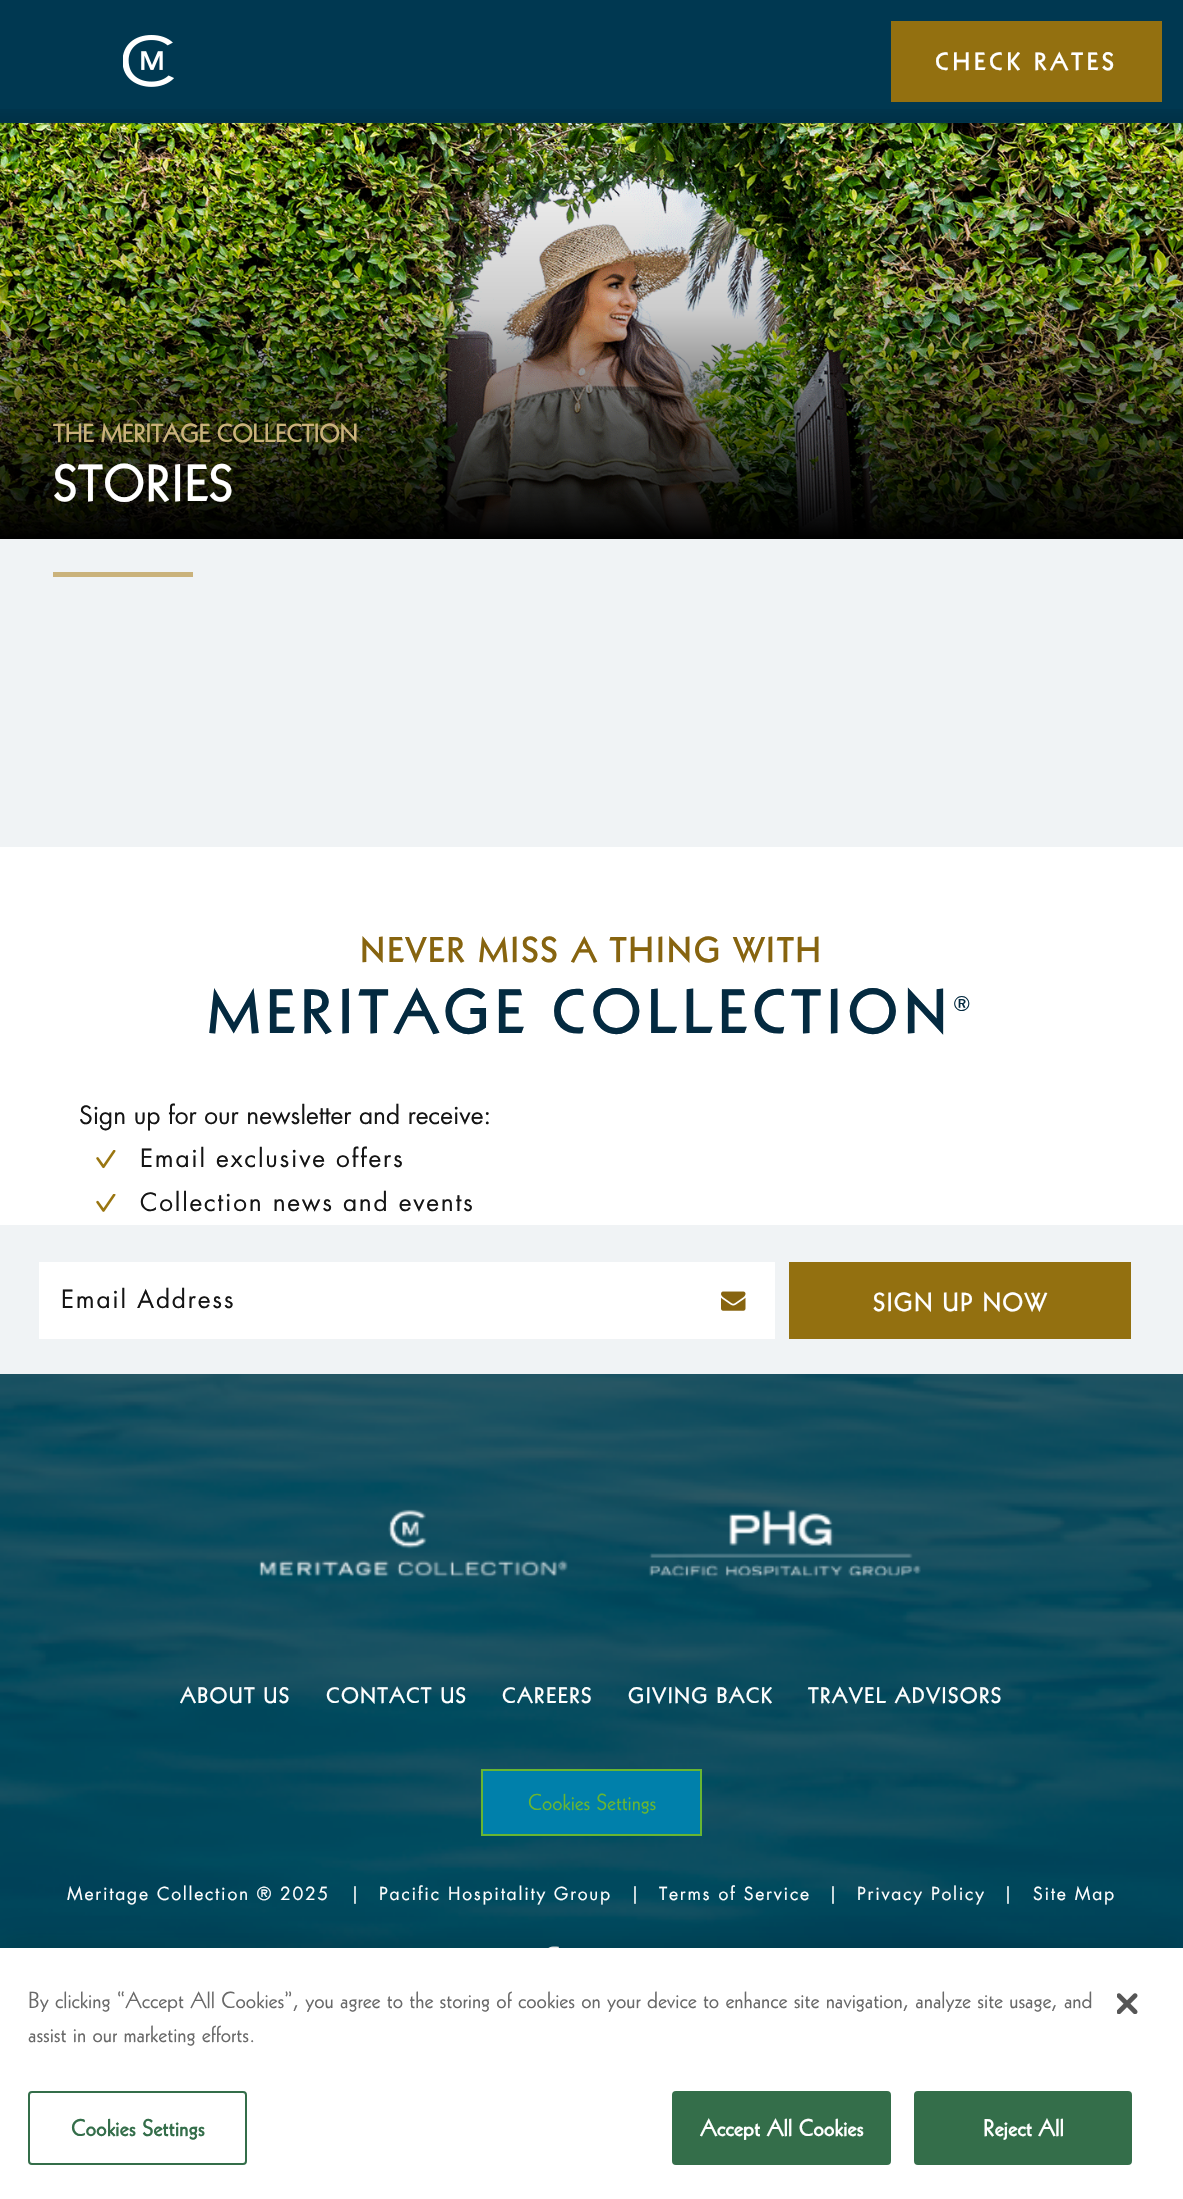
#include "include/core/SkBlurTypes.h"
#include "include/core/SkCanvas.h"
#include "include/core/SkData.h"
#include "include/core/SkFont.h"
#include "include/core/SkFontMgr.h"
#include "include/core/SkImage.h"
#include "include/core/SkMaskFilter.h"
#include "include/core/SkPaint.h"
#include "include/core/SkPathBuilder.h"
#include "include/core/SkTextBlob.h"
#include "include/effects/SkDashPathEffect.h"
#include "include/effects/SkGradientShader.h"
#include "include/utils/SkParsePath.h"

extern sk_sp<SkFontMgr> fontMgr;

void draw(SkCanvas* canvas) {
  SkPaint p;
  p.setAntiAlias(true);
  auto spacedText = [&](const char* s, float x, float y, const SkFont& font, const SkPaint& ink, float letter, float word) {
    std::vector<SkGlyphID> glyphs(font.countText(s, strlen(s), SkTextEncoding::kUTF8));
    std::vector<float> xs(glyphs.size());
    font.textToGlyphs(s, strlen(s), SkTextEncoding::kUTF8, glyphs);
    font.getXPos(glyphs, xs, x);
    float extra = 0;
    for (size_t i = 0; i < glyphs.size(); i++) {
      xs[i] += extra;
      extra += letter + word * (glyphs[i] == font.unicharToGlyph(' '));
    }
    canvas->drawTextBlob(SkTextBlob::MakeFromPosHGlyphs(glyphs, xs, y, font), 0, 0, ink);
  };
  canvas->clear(SK_ColorWHITE);
  p.setColor(SkColorSetRGB(0, 56, 81));
  canvas->drawRect(SkRect::MakeLTRB(0, 0, 1183, 123), p);
  canvas->drawImageRect(SkImages::DeferredFromEncodedData(SkData::MakeFromFileName("images/1.png")), SkRect::MakeLTRB(0, 109, 1183, 123), SkSamplingOptions());
  canvas->drawImageRect(SkImages::DeferredFromEncodedData(SkData::MakeFromFileName("images/2.png")), SkRect::MakeLTRB(123, 35, 174, 87), SkSamplingOptions());
  p.setColor(SkColorSetRGB(147, 112, 16));
  canvas->drawRect(SkRect::MakeLTRB(891, 21, 1162, 102), p);
  canvas->drawImageRect(SkImages::DeferredFromEncodedData(SkData::MakeFromFileName("images/3.png")), SkRect::MakeLTRB(0, 123, 1183, 539), SkSamplingOptions());
  p.setColor(SkColorSetRGB(240, 243, 245));
  canvas->drawRect(SkRect::MakeLTRB(0, 539, 1183, 847), p);
  p.setColor(SkColorSetRGB(202, 178, 123));
  canvas->drawRect(SkRect::MakeLTRB(53, 572, 193, 577), p);
  canvas->drawImageRect(SkImages::DeferredFromEncodedData(SkData::MakeFromFileName("images/4.png")), SkRect::MakeLTRB(96, 1150, 116, 1169), SkSamplingOptions());
  canvas->drawImageRect(SkImages::DeferredFromEncodedData(SkData::MakeFromFileName("images/5.png")), SkRect::MakeLTRB(96, 1194, 116, 1212), SkSamplingOptions());
  p.setColor(SkColorSetRGB(240, 243, 245));
  canvas->drawRect(SkRect::MakeLTRB(0, 1225, 1183, 1374), p);
  p.setColor(SK_ColorWHITE);
  canvas->drawRect(SkRect::MakeLTRB(39, 1262, 775, 1339), p);
  canvas->drawImageRect(SkImages::DeferredFromEncodedData(SkData::MakeFromFileName("images/6.png")), SkRect::MakeLTRB(721, 1291, 746, 1311), SkSamplingOptions());
  p.setColor(SkColorSetRGB(147, 112, 16));
  canvas->drawRect(SkRect::MakeLTRB(789, 1262, 1131, 1339), p);
  canvas->drawImageRect(SkImages::DeferredFromEncodedData(SkData::MakeFromFileName("images/7.png")), SkRect::MakeLTRB(0, 1374, 1183, 1948), SkSamplingOptions());
  canvas->drawImageRect(SkImages::DeferredFromEncodedData(SkData::MakeFromFileName("images/8.png")), SkRect::MakeLTRB(259, 1509, 921, 1577), SkSamplingOptions());
  p.setColor(SkColorSetRGB(0, 128, 171));
  canvas->drawRect(SkRect::MakeLTRB(482, 1770, 701, 1835), p);
  p.setStyle(SkPaint::kStroke_Style);
  p.setStrokeWidth(2);
  p.setColor(SkColorSetRGB(104, 182, 49));
  canvas->drawRect(SkRect::MakeLTRB(482, 1770, 701, 1835), p);
  canvas->drawImageRect(SkImages::DeferredFromEncodedData(SkData::MakeFromFileName("images/9.png")), SkRect::MakeLTRB(548, 1946, 559, 1948), SkSamplingOptions());
  p.setStyle(SkPaint::kFill_Style);
  p.setColor(SkColorSetARGB(51, 0, 0, 0));
  p.setMaskFilter(SkMaskFilter::MakeBlur(kNormal_SkBlurStyle, 16));
  canvas->drawRect(SkRect::MakeLTRB(0, 1948, 1183, 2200), p);
  p.setMaskFilter(nullptr);
  p.setColor(SK_ColorWHITE);
  canvas->drawRect(SkRect::MakeLTRB(0, 1948, 1183, 2199), p);
  p.setStyle(SkPaint::kStroke_Style);
  p.setColor(SkColorSetRGB(52, 110, 74));
  canvas->drawRoundRect(SkRect::MakeLTRB(29, 2092, 246, 2164), 3, 3, p);
  p.setStyle(SkPaint::kFill_Style);
  canvas->drawRoundRect(SkRect::MakeLTRB(673, 2092, 890, 2164), 3, 3, p);
  p.setStyle(SkPaint::kStroke_Style);
  canvas->drawRoundRect(SkRect::MakeLTRB(673, 2092, 890, 2164), 3, 3, p);
  p.setStyle(SkPaint::kFill_Style);
  canvas->drawRoundRect(SkRect::MakeLTRB(915, 2092, 1131, 2164), 3, 3, p);
  p.setStyle(SkPaint::kStroke_Style);
  canvas->drawRoundRect(SkRect::MakeLTRB(915, 2092, 1131, 2164), 3, 3, p);
  canvas->drawImageRect(SkImages::DeferredFromEncodedData(SkData::MakeFromFileName("images/10.png")), SkRect::MakeLTRB(1117, 1993, 1138, 2014), SkSamplingOptions());
  SkFont font1(fontMgr->matchFamilyStyle("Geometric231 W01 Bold", SkFontStyle::Bold()), 24.5f);
  font1.setSubpixel(true);
  p.setStyle(SkPaint::kFill_Style);
  p.setColor(SK_ColorWHITE);
  spacedText("CHECK RATES", 935, 70, font1, p, 3.5f, 0);
  SkFont font2(fontMgr->matchFamilyStyle("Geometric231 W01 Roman", SkFontStyle::Bold()), 24.5f);
  font2.setSubpixel(true);
  p.setColor(SkColorSetRGB(202, 178, 123));
  canvas->drawString("THE MERITAGE COLLECTION", 53, 442, font2, p);
  SkFont font3(fontMgr->matchFamilyStyle("Geometric231 W01 Roman", SkFontStyle::Bold()), 49);
  font3.setSubpixel(true);
  p.setColor(SK_ColorWHITE);
  spacedText("STORIES", 53, 501, font3, p, 1.75f, 0);
  SkFont font4(fontMgr->matchFamilyStyle("Geometric231 W01 Bold", SkFontStyle::Bold()), 35);
  font4.setSubpixel(true);
  p.setColor(SkColorSetRGB(135, 100, 15));
  spacedText("NEVER MISS A THING WITH", 360, 962, font4, p, 1.75f, 0);
  SkFont font5(fontMgr->matchFamilyStyle("Geometric231 W01 Bold", SkFontStyle::Bold()), 61.25f);
  font5.setSubpixel(true);
  p.setColor(SkColorSetRGB(4, 42, 64));
  spacedText("MERITAGE COLLECTION", 207, 1033, font5, p, 5.25f, 0);
  SkFont font6(fontMgr->matchFamilyStyle("Geometric231 W01 Bold", SkFontStyle::Bold()), 21);
  font6.setSubpixel(true);
  spacedText("®", 953, 1011, font6, p, 5.25f, 0);
  SkFont font7(fontMgr->matchFamilyStyle("Futura", SkFontStyle::Normal()), 24.5f);
  font7.setSubpixel(true);
  p.setColor(SkColorSetRGB(21, 21, 21));
  canvas->drawString("Sign up for our newsletter and receive:", 79, 1124, font7, p);
  spacedText("Email exclusive offers", 140, 1167, font7, p, 1.75f, 0);
  spacedText("Collection news and events", 140, 1211, font7, p, 1.75f, 0);
  spacedText("Email Address", 61, 1308, font7, p, 1.75f, 0);
  p.setColor(SK_ColorWHITE);
  spacedText("SIGN UP NOW", 873, 1311, font2, p, 1.75f, 0);
  SkFont font8(fontMgr->matchFamilyStyle("Geometric231 W01 Roman", SkFontStyle::Bold()), 21);
  font8.setSubpixel(true);
  spacedText("ABOUT US", 180, 1703, font8, p, 1.75f, 0);
  spacedText("CONTACT US", 326, 1703, font8, p, 1.75f, 0);
  spacedText("CAREERS", 502, 1703, font8, p, 1.75f, 0);
  spacedText("GIVING BACK", 628, 1703, font8, p, 1.75f, 0);
  spacedText("TRAVEL ADVISORS", 808, 1703, font8, p, 1.75f, 0);
  SkFont font9(fontMgr->matchFamilyStyle("Geometric231 W01 Roman", SkFontStyle::Normal()), 22.5f);
  font9.setSubpixel(true);
  p.setColor(SkColorSetRGB(104, 182, 49));
  canvas->drawString("Cookies Settings", 528, 1810, font9, p);
  SkFont font10(fontMgr->matchFamilyStyle("Futura", SkFontStyle::Normal()), 17.5f);
  font10.setSubpixel(true);
  p.setColor(SK_ColorWHITE);
  spacedText("Meritage Collection ® 2025", 67, 1900, font10, p, 1.75f, 0);
  spacedText("|", 350, 1900, font10, p, 1.75f, 0);
  spacedText("Pacific Hospitality Group", 379, 1900, font10, p, 1.75f, 0);
  spacedText("|", 630, 1900, font10, p, 1.75f, 0);
  spacedText("Terms of Service", 659, 1900, font10, p, 1.75f, 0);
  spacedText("|", 828, 1900, font10, p, 1.75f, 0);
  spacedText("Privacy Policy", 857, 1900, font10, p, 1.75f, 0);
  spacedText("|", 1003, 1900, font10, p, 1.75f, 0);
  spacedText("Site Map", 1033, 1900, font10, p, 1.75f, 0);
  SkFont font11(fontMgr->matchFamilyStyle("Geometric231 W01 Roman", SkFontStyle::Normal()), 22.75f);
  font11.setSubpixel(true);
  p.setColor(SkColorSetRGB(105, 105, 105));
  canvas->drawString("By clicking “Accept All Cookies”, you agree to the storing of cookies on your device to enhance site navigation, analyze site usage, and", 28, 2008, font11, p);
  canvas->drawString("assist in our marketing efforts.", 28, 2042, font11, p);
  SkFont font12(fontMgr->matchFamilyStyle("Geometric231 W01 Roman", SkFontStyle::Bold()), 22.75f);
  font12.setSubpixel(true);
  p.setColor(SkColorSetRGB(52, 110, 74));
  spacedText("Cookies Settings", 71, 2136, font12, p, 0.25f, 0);
  p.setColor(SK_ColorWHITE);
  spacedText("Accept All Cookies", 700, 2136, font12, p, 0.25f, 0);
  spacedText("Reject All", 983, 2136, font12, p, 0.25f, 0);
}
